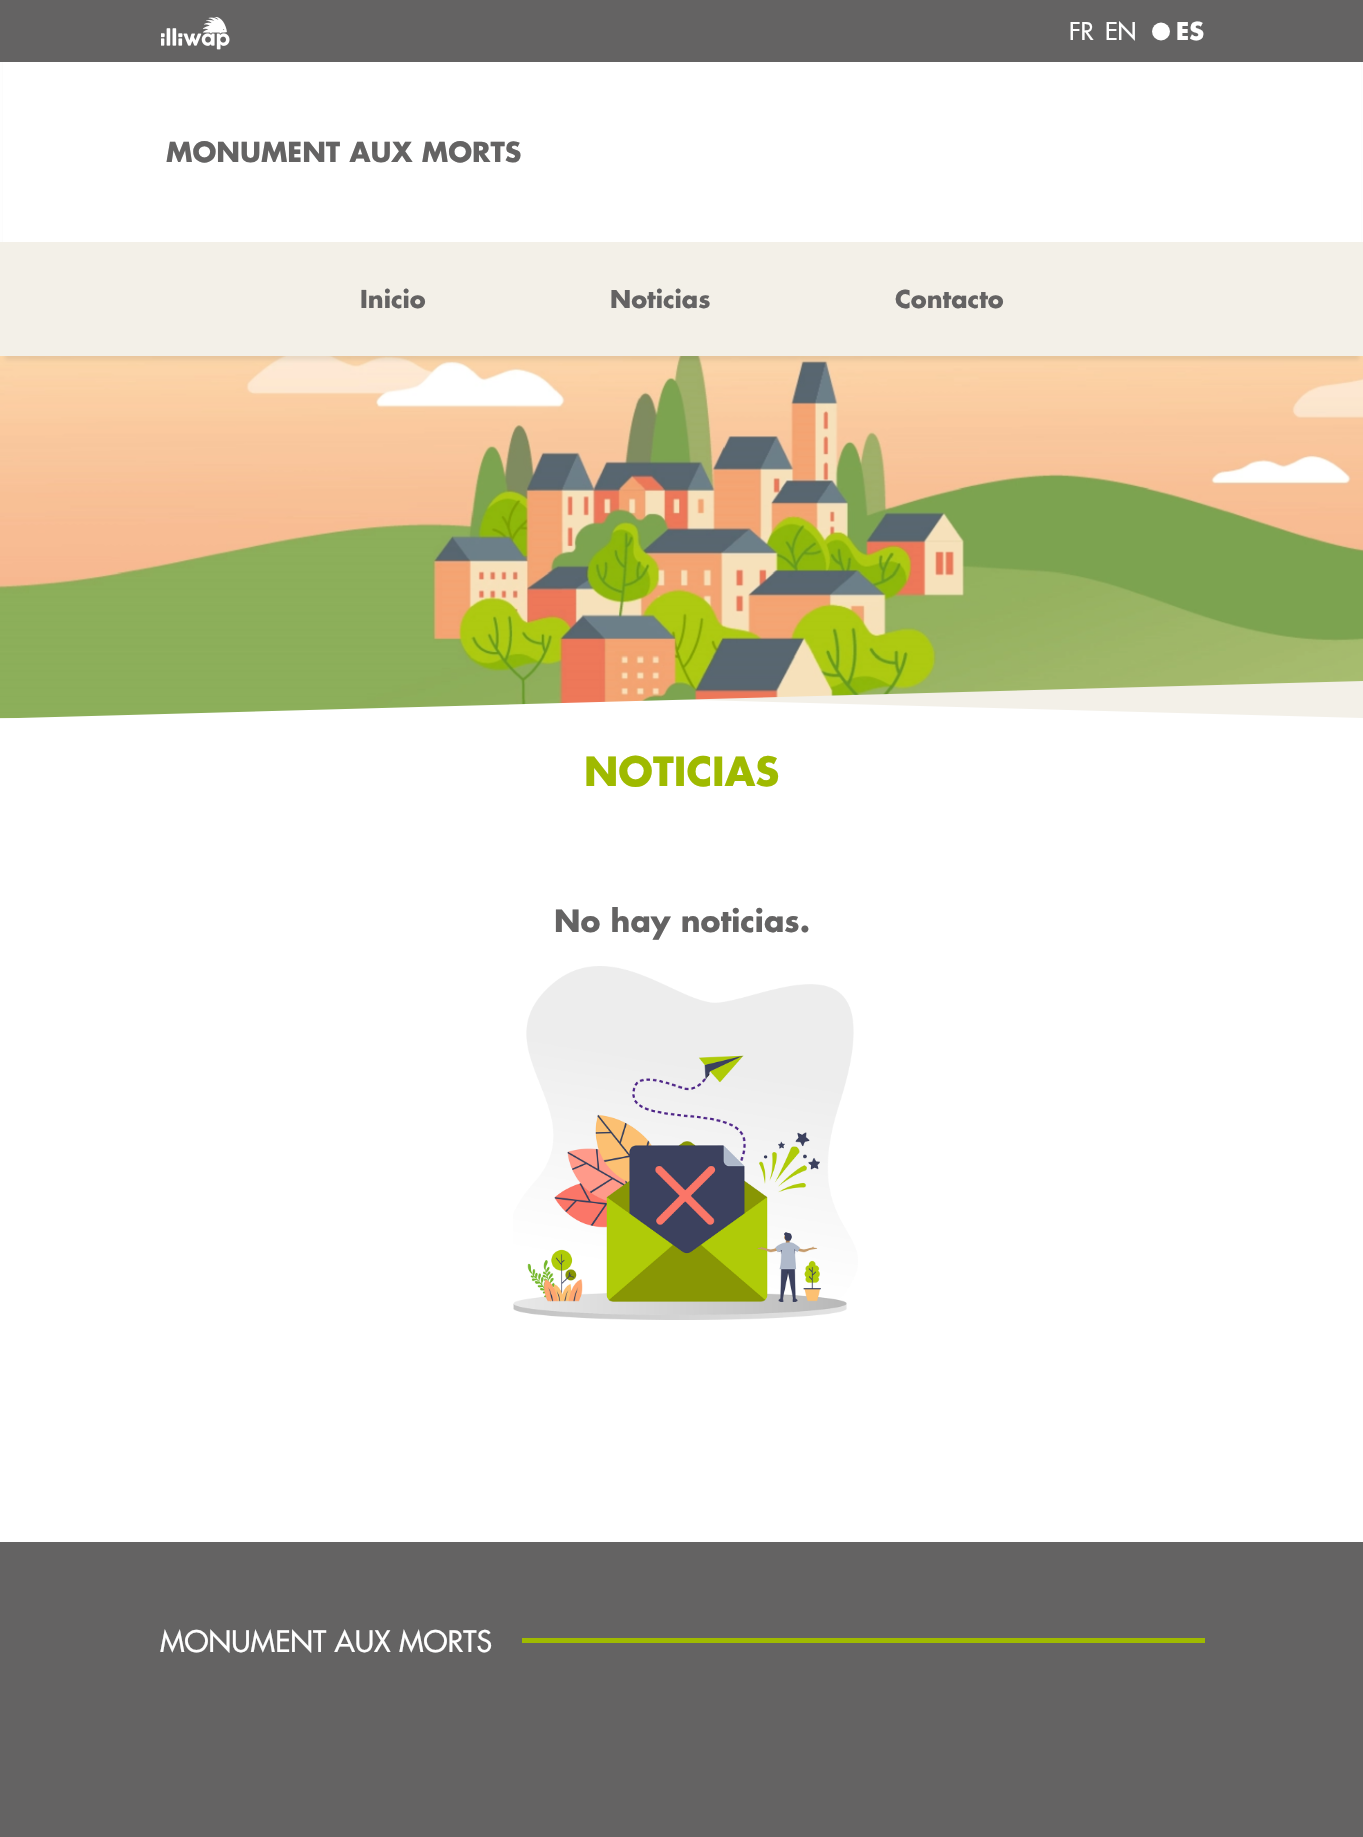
#include "include/core/SkBlurTypes.h"
#include "include/core/SkCanvas.h"
#include "include/core/SkData.h"
#include "include/core/SkFont.h"
#include "include/core/SkFontMgr.h"
#include "include/core/SkImage.h"
#include "include/core/SkMaskFilter.h"
#include "include/core/SkPaint.h"
#include "include/core/SkPathBuilder.h"
#include "include/core/SkTextBlob.h"
#include "include/effects/SkDashPathEffect.h"
#include "include/effects/SkGradientShader.h"
#include "include/utils/SkParsePath.h"

extern sk_sp<SkFontMgr> fontMgr;

void draw(SkCanvas* canvas) {
  SkPaint p;
  p.setAntiAlias(true);
  canvas->clear(SK_ColorWHITE);
  p.setColor(SkColorSetRGB(243, 240, 232));
  canvas->drawPath(SkPathBuilder().moveTo(0, 344).lineTo(0, 681).lineTo(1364, 718).lineTo(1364, 344).close().detach(), p);
  canvas->drawImageRect(SkImages::DeferredFromEncodedData(SkData::MakeFromFileName("images/2.png")), SkRect::MakeLTRB(0, 356, 1363, 719), SkSamplingOptions());
  p.setColor(SkColorSetARGB(20, 0, 0, 0));
  p.setMaskFilter(SkMaskFilter::MakeBlur(kNormal_SkBlurStyle, 2));
  canvas->drawRect(SkRect::MakeLTRB(5, 14, 1359, 360), p);
  p.setMaskFilter(nullptr);
  p.setColor(SK_ColorWHITE);
  canvas->drawRect(SkRect::MakeLTRB(3, 62, 1361, 242), p);
  p.setColor(SkColorSetRGB(100, 99, 99));
  canvas->drawRect(SkRect::MakeLTRB(0, 0, 1363, 62), p);
  canvas->drawImageRect(SkImages::DeferredFromEncodedData(SkData::MakeFromFileName("images/1.png")), SkRect::MakeLTRB(161, 17, 230, 50), SkSamplingOptions());
  p.setColor(SK_ColorWHITE);
  canvas->drawCircle(1161, 31.5f, 9, p);
  p.setColor(SkColorSetRGB(243, 240, 232));
  canvas->drawRect(SkRect::MakeLTRB(0, 242, 1363, 356), p);
  canvas->drawImageRect(SkImages::DeferredFromEncodedData(SkData::MakeFromFileName("images/3.png")), SkRect::MakeLTRB(513, 966, 858, 1320), SkSamplingOptions());
  p.setColor(SkColorSetRGB(100, 99, 99));
  canvas->drawRect(SkRect::MakeLTRB(0, 1542, 1363, 1837), p);
  p.setColor(SkColorSetRGB(159, 186, 0));
  canvas->drawRect(SkRect::MakeLTRB(522, 1638, 1205, 1643), p);
  SkFont font1(fontMgr->matchFamilyStyle("Futura", SkFontStyle::Normal()), 24);
  font1.setSubpixel(true);
  p.setColor(SK_ColorWHITE);
  canvas->drawString("FR", 1069, 40, font1, p);
  canvas->drawString("EN", 1105, 40, font1, p);
  SkFont font2(fontMgr->matchFamilyStyle("Futura", SkFontStyle::Bold()), 24);
  font2.setSubpixel(true);
  canvas->drawString("ES", 1176, 40, font2, p);
  SkFont font3(fontMgr->matchFamilyStyle("Futura", SkFontStyle::Bold()), 26.9f);
  font3.setSubpixel(true);
  p.setColor(SkColorSetRGB(100, 99, 99));
  canvas->drawString("MONUMENT AUX MORTS", 166, 162, font3, p);
  canvas->drawString("Inicio", 360, 308, font2, p);
  canvas->drawString("Noticias", 610, 308, font2, p);
  canvas->drawString("Contacto", 895, 308, font2, p);
  SkFont font4(fontMgr->matchFamilyStyle("Futura", SkFontStyle::Bold()), 39);
  font4.setSubpixel(true);
  p.setColor(SkColorSetRGB(159, 186, 0));
  canvas->drawString("NOTICIAS", 584, 786, font4, p);
  SkFont font5(fontMgr->matchFamilyStyle("Futura", SkFontStyle::Bold()), 30);
  font5.setSubpixel(true);
  p.setColor(SkColorSetRGB(100, 99, 99));
  canvas->drawString("No hay noticias.", 554, 932, font5, p);
  SkFont font6(fontMgr->matchFamilyStyle("Futura", SkFontStyle::Normal()), 28.9f);
  font6.setSubpixel(true);
  p.setColor(SK_ColorWHITE);
  canvas->drawString("MONUMENT AUX MORTS", 160, 1652, font6, p);
}
